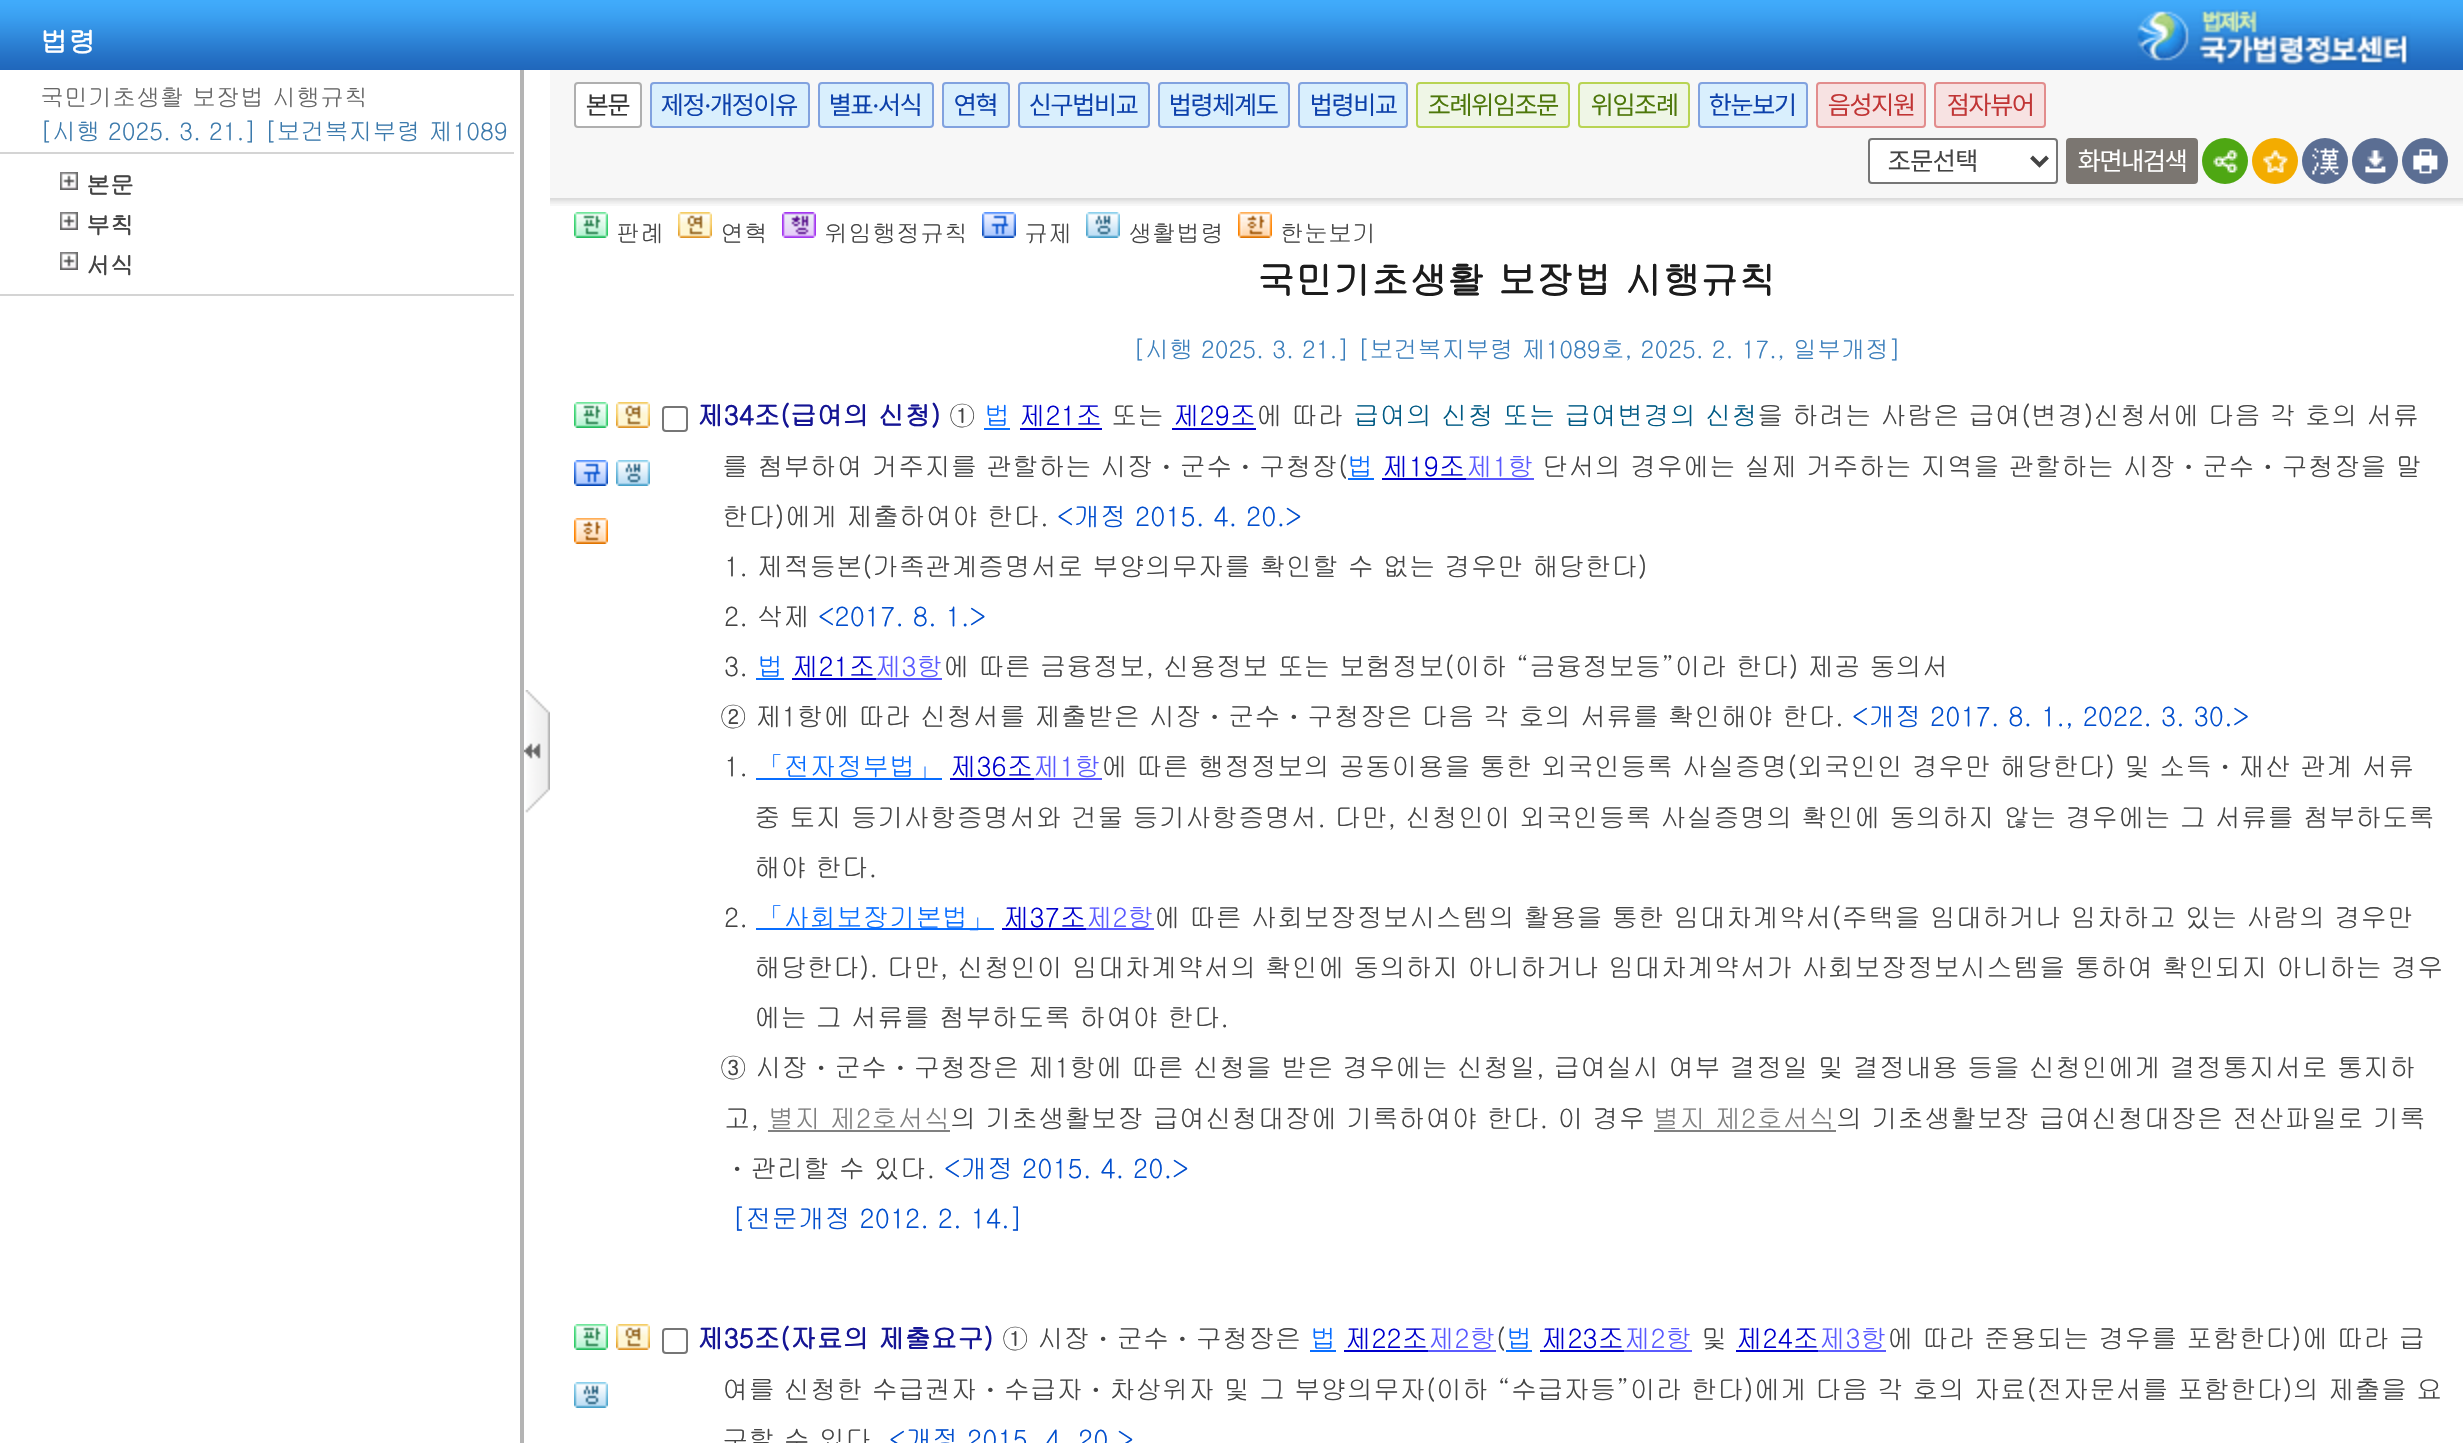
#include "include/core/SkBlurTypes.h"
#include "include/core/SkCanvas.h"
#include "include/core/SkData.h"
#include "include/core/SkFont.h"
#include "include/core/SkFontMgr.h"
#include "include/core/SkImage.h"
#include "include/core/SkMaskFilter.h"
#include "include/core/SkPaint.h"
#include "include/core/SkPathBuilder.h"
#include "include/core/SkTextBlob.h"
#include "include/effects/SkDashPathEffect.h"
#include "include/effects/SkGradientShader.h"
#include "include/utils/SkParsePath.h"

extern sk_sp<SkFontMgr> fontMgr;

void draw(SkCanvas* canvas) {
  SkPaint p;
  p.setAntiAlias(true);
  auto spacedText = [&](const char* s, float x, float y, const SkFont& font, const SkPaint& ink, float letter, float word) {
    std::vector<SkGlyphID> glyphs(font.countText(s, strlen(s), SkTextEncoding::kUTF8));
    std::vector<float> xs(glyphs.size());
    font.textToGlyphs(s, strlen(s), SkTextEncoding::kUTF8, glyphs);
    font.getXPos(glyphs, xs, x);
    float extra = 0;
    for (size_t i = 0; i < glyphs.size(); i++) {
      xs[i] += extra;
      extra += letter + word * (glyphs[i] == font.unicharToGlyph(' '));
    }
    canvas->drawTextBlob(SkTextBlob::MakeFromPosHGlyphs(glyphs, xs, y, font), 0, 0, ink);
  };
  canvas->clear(SK_ColorWHITE);
  p.setColor(SkColorSetRGB(180, 180, 180));
  canvas->drawRect(SkRect::MakeLTRB(520, 68, 524, 1443), p);
  canvas->drawImageRect(SkImages::DeferredFromEncodedData(SkData::MakeFromFileName("images/1.png")), SkRect::MakeLTRB(0, 0, 2463, 70), SkSamplingOptions());
  canvas->drawImageRect(SkImages::DeferredFromEncodedData(SkData::MakeFromFileName("images/2.png")), SkRect::MakeLTRB(2137, 9, 2411, 67), SkSamplingOptions());
  p.setColor(SkColorSetRGB(212, 212, 212));
  canvas->drawRect(SkRect::MakeLTRB(0, 294, 514, 296), p);
  canvas->drawRect(SkRect::MakeLTRB(0, 152, 514, 154), p);
  canvas->drawImageRect(SkImages::DeferredFromEncodedData(SkData::MakeFromFileName("images/3.png")), SkRect::MakeLTRB(60, 172, 78, 190), SkSamplingOptions());
  canvas->drawImageRect(SkImages::DeferredFromEncodedData(SkData::MakeFromFileName("images/3.png")), SkRect::MakeLTRB(60, 212, 78, 230), SkSamplingOptions());
  canvas->drawImageRect(SkImages::DeferredFromEncodedData(SkData::MakeFromFileName("images/3.png")), SkRect::MakeLTRB(60, 252, 78, 270), SkSamplingOptions());
  p.setColor(SkColorSetRGB(247, 247, 247));
  canvas->drawRect(SkRect::MakeLTRB(550, 70, 2463, 206), p);
  canvas->drawImageRect(SkImages::DeferredFromEncodedData(SkData::MakeFromFileName("images/4.png")), SkRect::MakeLTRB(550, 198, 2463, 204), SkSamplingOptions());
  p.setColor(SK_ColorWHITE);
  canvas->drawRoundRect(SkRect::MakeLTRB(575, 83, 641, 127), 3, 3, p);
  p.setStyle(SkPaint::kStroke_Style);
  p.setStrokeWidth(2);
  p.setColor(SkColorSetRGB(175, 175, 175));
  canvas->drawRoundRect(SkRect::MakeLTRB(575, 83, 641, 127), 3, 3, p);
  p.setStyle(SkPaint::kFill_Style);
  p.setColor(SkColorSetRGB(217, 239, 253));
  canvas->drawRoundRect(SkRect::MakeLTRB(651, 83, 809, 127), 3, 3, p);
  p.setStyle(SkPaint::kStroke_Style);
  p.setColor(SkColorSetRGB(129, 162, 223));
  canvas->drawRoundRect(SkRect::MakeLTRB(651, 83, 809, 127), 3, 3, p);
  p.setStyle(SkPaint::kFill_Style);
  p.setColor(SkColorSetRGB(217, 239, 253));
  canvas->drawRoundRect(SkRect::MakeLTRB(819, 83, 933, 127), 3, 3, p);
  p.setStyle(SkPaint::kStroke_Style);
  p.setColor(SkColorSetRGB(129, 162, 223));
  canvas->drawRoundRect(SkRect::MakeLTRB(819, 83, 933, 127), 3, 3, p);
  p.setStyle(SkPaint::kFill_Style);
  p.setColor(SkColorSetRGB(217, 239, 253));
  canvas->drawRoundRect(SkRect::MakeLTRB(943, 83, 1009, 127), 3, 3, p);
  p.setStyle(SkPaint::kStroke_Style);
  p.setColor(SkColorSetRGB(129, 162, 223));
  canvas->drawRoundRect(SkRect::MakeLTRB(943, 83, 1009, 127), 3, 3, p);
  p.setStyle(SkPaint::kFill_Style);
  p.setColor(SkColorSetRGB(217, 239, 253));
  canvas->drawRoundRect(SkRect::MakeLTRB(1019, 83, 1149, 127), 3, 3, p);
  p.setStyle(SkPaint::kStroke_Style);
  p.setColor(SkColorSetRGB(129, 162, 223));
  canvas->drawRoundRect(SkRect::MakeLTRB(1019, 83, 1149, 127), 3, 3, p);
  p.setStyle(SkPaint::kFill_Style);
  p.setColor(SkColorSetRGB(217, 239, 253));
  canvas->drawRoundRect(SkRect::MakeLTRB(1159, 83, 1289, 127), 3, 3, p);
  p.setStyle(SkPaint::kStroke_Style);
  p.setColor(SkColorSetRGB(129, 162, 223));
  canvas->drawRoundRect(SkRect::MakeLTRB(1159, 83, 1289, 127), 3, 3, p);
  p.setStyle(SkPaint::kFill_Style);
  p.setColor(SkColorSetRGB(217, 239, 253));
  canvas->drawRoundRect(SkRect::MakeLTRB(1299, 83, 1407, 127), 3, 3, p);
  p.setStyle(SkPaint::kStroke_Style);
  p.setColor(SkColorSetRGB(129, 162, 223));
  canvas->drawRoundRect(SkRect::MakeLTRB(1299, 83, 1407, 127), 3, 3, p);
  p.setStyle(SkPaint::kFill_Style);
  p.setColor(SkColorSetRGB(239, 246, 230));
  canvas->drawRoundRect(SkRect::MakeLTRB(1417, 83, 1569, 127), 3, 3, p);
  p.setStyle(SkPaint::kStroke_Style);
  p.setColor(SkColorSetRGB(184, 212, 83));
  canvas->drawRoundRect(SkRect::MakeLTRB(1417, 83, 1569, 127), 3, 3, p);
  p.setStyle(SkPaint::kFill_Style);
  p.setColor(SkColorSetRGB(239, 246, 230));
  canvas->drawRoundRect(SkRect::MakeLTRB(1579, 83, 1689, 127), 3, 3, p);
  p.setStyle(SkPaint::kStroke_Style);
  p.setColor(SkColorSetRGB(184, 212, 83));
  canvas->drawRoundRect(SkRect::MakeLTRB(1579, 83, 1689, 127), 3, 3, p);
  p.setStyle(SkPaint::kFill_Style);
  p.setColor(SkColorSetRGB(217, 239, 253));
  canvas->drawRoundRect(SkRect::MakeLTRB(1699, 83, 1807, 127), 3, 3, p);
  p.setStyle(SkPaint::kStroke_Style);
  p.setColor(SkColorSetRGB(129, 162, 223));
  canvas->drawRoundRect(SkRect::MakeLTRB(1699, 83, 1807, 127), 3, 3, p);
  p.setStyle(SkPaint::kFill_Style);
  p.setColor(SkColorSetRGB(247, 226, 226));
  canvas->drawRoundRect(SkRect::MakeLTRB(1817, 83, 1925, 127), 3, 3, p);
  p.setStyle(SkPaint::kStroke_Style);
  p.setColor(SkColorSetRGB(226, 141, 141));
  canvas->drawRoundRect(SkRect::MakeLTRB(1817, 83, 1925, 127), 3, 3, p);
  p.setStyle(SkPaint::kFill_Style);
  p.setColor(SkColorSetRGB(247, 226, 226));
  canvas->drawRoundRect(SkRect::MakeLTRB(1935, 83, 2045, 127), 3, 3, p);
  p.setStyle(SkPaint::kStroke_Style);
  p.setColor(SkColorSetRGB(226, 141, 141));
  canvas->drawRoundRect(SkRect::MakeLTRB(1935, 83, 2045, 127), 3, 3, p);
  p.setStyle(SkPaint::kFill_Style);
  p.setColor(SK_ColorWHITE);
  canvas->drawRoundRect(SkRect::MakeLTRB(1869, 139, 2057, 183), 3, 3, p);
  p.setStyle(SkPaint::kStroke_Style);
  p.setColor(SkColorSetRGB(118, 118, 118));
  canvas->drawRoundRect(SkRect::MakeLTRB(1869, 139, 2057, 183), 3, 3, p);
  p.setStrokeWidth(4);
  p.setColor(SkColorSetRGB(68, 68, 68));
  canvas->drawPath(SkPathBuilder().moveTo(2031.5f, 157).lineTo(2039.5f, 165).lineTo(2047.5f, 157).detach(), p);
  p.setStyle(SkPaint::kFill_Style);
  p.setColor(SkColorSetRGB(123, 118, 113));
  canvas->drawRoundRect(SkRect::MakeLTRB(2067, 139, 2197, 183), 3, 3, p);
  p.setStyle(SkPaint::kStroke_Style);
  p.setStrokeWidth(2);
  canvas->drawRoundRect(SkRect::MakeLTRB(2067, 139, 2197, 183), 3, 3, p);
  p.setStyle(SkPaint::kFill_Style);
  p.setColor(SkColorSetRGB(78, 167, 19));
  canvas->drawCircle(2225, 161, 23, p);
  canvas->drawImageRect(SkImages::DeferredFromEncodedData(SkData::MakeFromFileName("images/5.png")), SkRect::MakeLTRB(2213, 150, 2238, 173), SkSamplingOptions());
  p.setColor(SkColorSetRGB(243, 172, 0));
  canvas->drawCircle(2275, 161, 23, p);
  canvas->drawImageRect(SkImages::DeferredFromEncodedData(SkData::MakeFromFileName("images/6.png")), SkRect::MakeLTRB(2263, 150, 2288, 173), SkSamplingOptions());
  p.setColor(SkColorSetRGB(91, 110, 147));
  canvas->drawCircle(2325, 161, 23, p);
  canvas->drawImageRect(SkImages::DeferredFromEncodedData(SkData::MakeFromFileName("images/7.png")), SkRect::MakeLTRB(2312, 148, 2339, 175), SkSamplingOptions());
  canvas->drawCircle(2375, 161, 23, p);
  canvas->drawImageRect(SkImages::DeferredFromEncodedData(SkData::MakeFromFileName("images/8.png")), SkRect::MakeLTRB(2365, 150, 2386, 173), SkSamplingOptions());
  canvas->drawCircle(2425, 161, 23, p);
  canvas->drawImageRect(SkImages::DeferredFromEncodedData(SkData::MakeFromFileName("images/9.png")), SkRect::MakeLTRB(2413, 149, 2438, 174), SkSamplingOptions());
  canvas->drawImageRect(SkImages::DeferredFromEncodedData(SkData::MakeFromFileName("images/10.png")), SkRect::MakeLTRB(574, 212, 608, 238), SkSamplingOptions());
  canvas->drawImageRect(SkImages::DeferredFromEncodedData(SkData::MakeFromFileName("images/11.png")), SkRect::MakeLTRB(678, 212, 712, 238), SkSamplingOptions());
  canvas->drawImageRect(SkImages::DeferredFromEncodedData(SkData::MakeFromFileName("images/12.png")), SkRect::MakeLTRB(782, 212, 816, 238), SkSamplingOptions());
  canvas->drawImageRect(SkImages::DeferredFromEncodedData(SkData::MakeFromFileName("images/13.png")), SkRect::MakeLTRB(982, 212, 1016, 238), SkSamplingOptions());
  canvas->drawImageRect(SkImages::DeferredFromEncodedData(SkData::MakeFromFileName("images/14.png")), SkRect::MakeLTRB(1086, 212, 1120, 238), SkSamplingOptions());
  canvas->drawImageRect(SkImages::DeferredFromEncodedData(SkData::MakeFromFileName("images/15.png")), SkRect::MakeLTRB(1238, 212, 1272, 238), SkSamplingOptions());
  canvas->drawImageRect(SkImages::DeferredFromEncodedData(SkData::MakeFromFileName("images/10.png")), SkRect::MakeLTRB(574, 402, 608, 428), SkSamplingOptions());
  canvas->drawImageRect(SkImages::DeferredFromEncodedData(SkData::MakeFromFileName("images/11.png")), SkRect::MakeLTRB(616, 402, 650, 428), SkSamplingOptions());
  canvas->drawImageRect(SkImages::DeferredFromEncodedData(SkData::MakeFromFileName("images/13.png")), SkRect::MakeLTRB(574, 460, 608, 486), SkSamplingOptions());
  canvas->drawImageRect(SkImages::DeferredFromEncodedData(SkData::MakeFromFileName("images/14.png")), SkRect::MakeLTRB(616, 460, 650, 486), SkSamplingOptions());
  canvas->drawImageRect(SkImages::DeferredFromEncodedData(SkData::MakeFromFileName("images/15.png")), SkRect::MakeLTRB(574, 518, 608, 544), SkSamplingOptions());
  p.setStyle(SkPaint::kStroke_Style);
  p.setColor(SkColorSetRGB(118, 118, 118));
  canvas->drawRoundRect(SkRect::MakeLTRB(663, 407, 687, 431), 3, 3, p);
  p.setStyle(SkPaint::kFill_Style);
  p.setColor(SkColorSetRGB(8, 109, 255));
  canvas->drawRect(SkRect::MakeLTRB(984, 428, 1010, 430), p);
  p.setColor(SkColorSetRGB(0, 0, 205));
  canvas->drawRect(SkRect::MakeLTRB(1020, 428, 1102, 430), p);
  canvas->drawRect(SkRect::MakeLTRB(1172, 428, 1256, 430), p);
  p.setColor(SkColorSetRGB(8, 109, 255));
  canvas->drawRect(SkRect::MakeLTRB(1348, 478, 1374, 480), p);
  p.setColor(SkColorSetRGB(0, 0, 205));
  canvas->drawRect(SkRect::MakeLTRB(1382, 478, 1466, 480), p);
  p.setColor(SkColorSetRGB(90, 90, 255));
  canvas->drawRect(SkRect::MakeLTRB(1466, 478, 1534, 480), p);
  p.setColor(SkColorSetRGB(8, 109, 255));
  canvas->drawRect(SkRect::MakeLTRB(756, 678, 784, 680), p);
  p.setColor(SkColorSetRGB(0, 0, 205));
  canvas->drawRect(SkRect::MakeLTRB(792, 678, 876, 680), p);
  p.setColor(SkColorSetRGB(90, 90, 255));
  canvas->drawRect(SkRect::MakeLTRB(876, 678, 942, 680), p);
  p.setColor(SkColorSetRGB(8, 109, 255));
  canvas->drawRect(SkRect::MakeLTRB(756, 778, 942, 780), p);
  p.setColor(SkColorSetRGB(0, 0, 205));
  canvas->drawRect(SkRect::MakeLTRB(950, 778, 1034, 780), p);
  p.setColor(SkColorSetRGB(90, 90, 255));
  canvas->drawRect(SkRect::MakeLTRB(1034, 778, 1102, 780), p);
  p.setColor(SkColorSetRGB(8, 109, 255));
  canvas->drawRect(SkRect::MakeLTRB(756, 928, 994, 930), p);
  p.setColor(SkColorSetRGB(0, 0, 205));
  canvas->drawRect(SkRect::MakeLTRB(1002, 928, 1086, 930), p);
  p.setColor(SkColorSetRGB(90, 90, 255));
  canvas->drawRect(SkRect::MakeLTRB(1086, 928, 1154, 930), p);
  p.setColor(SkColorSetRGB(128, 128, 128));
  canvas->drawRect(SkRect::MakeLTRB(768, 1130, 950, 1132), p);
  canvas->drawRect(SkRect::MakeLTRB(1654, 1130, 1836, 1132), p);
  canvas->drawImageRect(SkImages::DeferredFromEncodedData(SkData::MakeFromFileName("images/10.png")), SkRect::MakeLTRB(574, 1324, 608, 1350), SkSamplingOptions());
  canvas->drawImageRect(SkImages::DeferredFromEncodedData(SkData::MakeFromFileName("images/11.png")), SkRect::MakeLTRB(616, 1324, 650, 1350), SkSamplingOptions());
  canvas->drawImageRect(SkImages::DeferredFromEncodedData(SkData::MakeFromFileName("images/14.png")), SkRect::MakeLTRB(574, 1382, 608, 1408), SkSamplingOptions());
  p.setStyle(SkPaint::kStroke_Style);
  p.setColor(SkColorSetRGB(118, 118, 118));
  canvas->drawRoundRect(SkRect::MakeLTRB(663, 1329, 687, 1353), 3, 3, p);
  p.setStyle(SkPaint::kFill_Style);
  p.setColor(SkColorSetRGB(8, 109, 255));
  canvas->drawRect(SkRect::MakeLTRB(1310, 1350, 1336, 1352), p);
  p.setColor(SkColorSetRGB(0, 0, 205));
  canvas->drawRect(SkRect::MakeLTRB(1344, 1350, 1428, 1352), p);
  p.setColor(SkColorSetRGB(90, 90, 255));
  canvas->drawRect(SkRect::MakeLTRB(1428, 1350, 1496, 1352), p);
  p.setColor(SkColorSetRGB(8, 109, 255));
  canvas->drawRect(SkRect::MakeLTRB(1506, 1350, 1532, 1352), p);
  p.setColor(SkColorSetRGB(0, 0, 205));
  canvas->drawRect(SkRect::MakeLTRB(1540, 1350, 1624, 1352), p);
  p.setColor(SkColorSetRGB(90, 90, 255));
  canvas->drawRect(SkRect::MakeLTRB(1624, 1350, 1692, 1352), p);
  p.setColor(SkColorSetRGB(0, 0, 205));
  canvas->drawRect(SkRect::MakeLTRB(1736, 1350, 1818, 1352), p);
  p.setColor(SkColorSetRGB(90, 90, 255));
  canvas->drawRect(SkRect::MakeLTRB(1818, 1350, 1886, 1352), p);
  canvas->drawImageRect(SkImages::DeferredFromEncodedData(SkData::MakeFromFileName("images/16.png")), SkRect::MakeLTRB(524, 690, 550, 813), SkSamplingOptions());
  SkFont font1(fontMgr->matchFamilyStyle("Gulim", SkFontStyle::Bold()), 28);
  font1.setSubpixel(true);
  p.setColor(SK_ColorWHITE);
  canvas->drawString("법령", 40, 52, font1, p);
  SkFont font2(fontMgr->matchFamilyStyle("Gulim", SkFontStyle::Normal()), 24);
  font2.setSubpixel(true);
  p.setColor(SkColorSetRGB(102, 102, 102));
  canvas->drawString("국민기초생활 보장법 시행규칙", 40, 106, font2, p);
  p.setColor(SkColorSetRGB(60, 122, 172));
  canvas->drawString("[시행 2025. 3. 21.] [보건복지부령 제1089", 40, 140, font2, p);
  SkFont font3(fontMgr->matchFamilyStyle("Gulim", SkFontStyle::Bold()), 24);
  font3.setSubpixel(true);
  p.setColor(SkColorSetRGB(68, 68, 68));
  canvas->drawString("본문", 86, 194, font3, p);
  canvas->drawString("부칙", 86, 234, font3, p);
  canvas->drawString("서식", 86, 274, font3, p);
  SkFont font4(fontMgr->matchFamilyStyle("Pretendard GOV", SkFontStyle::Normal()), 26);
  font4.setSubpixel(true);
  p.setColor(SkColorSetRGB(51, 51, 51));
  spacedText("본문", 586, 114, font4, p, -0.75f, 0);
  p.setColor(SkColorSetRGB(13, 65, 171));
  spacedText("제정·개정이유", 661, 114, font4, p, -0.75f, 0);
  spacedText("별표·서식", 829, 114, font4, p, -0.75f, 0);
  spacedText("연혁", 954, 114, font4, p, -0.75f, 0);
  spacedText("신구법비교", 1029, 114, font4, p, -0.75f, 0);
  spacedText("법령체계도", 1169, 114, font4, p, -0.75f, 0);
  spacedText("법령비교", 1310, 114, font4, p, -0.75f, 0);
  p.setColor(SkColorSetRGB(77, 119, 10));
  spacedText("조례위임조문", 1428, 114, font4, p, -0.75f, 0);
  spacedText("위임조례", 1591, 114, font4, p, -0.75f, 0);
  p.setColor(SkColorSetRGB(13, 65, 171));
  spacedText("한눈보기", 1709, 114, font4, p, -0.75f, 0);
  p.setColor(SkColorSetRGB(193, 53, 53));
  spacedText("음성지원", 1828, 114, font4, p, -0.75f, 0);
  spacedText("점자뷰어", 1947, 114, font4, p, -0.75f, 0);
  p.setColor(SkColorSetRGB(68, 68, 68));
  canvas->drawString("조문선택", 1888, 170, font4, p);
  p.setColor(SK_ColorWHITE);
  spacedText("화면내검색", 2078, 170, font4, p, -0.75f, 0);
  p.setColor(SkColorSetRGB(68, 68, 68));
  canvas->drawString("판례", 616, 242, font2, p);
  canvas->drawString("연혁", 720, 242, font2, p);
  canvas->drawString("위임행정규칙", 824, 242, font2, p);
  canvas->drawString("규제", 1024, 242, font2, p);
  canvas->drawString("생활법령", 1128, 242, font2, p);
  canvas->drawString("한눈보기", 1280, 242, font2, p);
  SkFont font5(fontMgr->matchFamilyStyle("Gulim", SkFontStyle::Bold()), 38);
  font5.setSubpixel(true);
  p.setColor(SkColorSetRGB(28, 28, 28));
  canvas->drawString("국민기초생활 보장법 시행규칙", 1257, 294, font5, p);
  p.setColor(SkColorSetRGB(60, 127, 188));
  canvas->drawString("[시행 2025. 3. 21.] [보건복지부령 제1089호, 2025. 2. 17., 일부개정]", 1133, 358, font2, p);
  SkFont font6(fontMgr->matchFamilyStyle("Gulim", SkFontStyle::Bold()), 26.4f);
  font6.setSubpixel(true);
  p.setColor(SkColorSetRGB(21, 21, 148));
  canvas->drawString("제34조(급여의 신청)", 697, 425, font6, p);
  SkFont font7(fontMgr->matchFamilyStyle("Gulim", SkFontStyle::Normal()), 26.4f);
  font7.setSubpixel(true);
  p.setColor(SkColorSetRGB(68, 68, 68));
  canvas->drawString("①", 949, 425, font7, p);
  p.setColor(SkColorSetRGB(8, 109, 255));
  canvas->drawString("법", 984, 425, font7, p);
  p.setColor(SkColorSetRGB(0, 0, 205));
  canvas->drawString("제21조", 1019, 425, font7, p);
  p.setColor(SkColorSetRGB(68, 68, 68));
  canvas->drawString("또는", 1111, 425, font7, p);
  p.setColor(SkColorSetRGB(0, 0, 205));
  canvas->drawString("제29조", 1173, 425, font7, p);
  p.setColor(SkColorSetRGB(68, 68, 68));
  canvas->drawString("에 따라", 1256, 425, font7, p);
  p.setColor(SkColorSetRGB(0, 90, 132));
  canvas->drawString("급여의 신청 또는 급여변경의 신청", 1353, 425, font7, p);
  p.setColor(SkColorSetRGB(68, 68, 68));
  canvas->drawString("을 하려는 사람은 급여(변경)신청서에 다음 각 호의 서류", 1757, 425, font7, p);
  canvas->drawString("를 첨부하여 거주지를 관할하는 시장ㆍ군수ㆍ구청장(", 722, 476, font7, p);
  p.setColor(SkColorSetRGB(8, 109, 255));
  canvas->drawString("법", 1347, 476, font7, p);
  p.setColor(SkColorSetRGB(0, 0, 205));
  canvas->drawString("제19조", 1382, 476, font7, p);
  p.setColor(SkColorSetRGB(90, 90, 255));
  canvas->drawString("제1항", 1466, 476, font7, p);
  p.setColor(SkColorSetRGB(68, 68, 68));
  canvas->drawString("단서의 경우에는 실제 거주하는 지역을 관할하는 시장ㆍ군수ㆍ구청장을 말", 1542, 476, font7, p);
  canvas->drawString("한다)에게 제출하여야 한다.", 722, 526, font7, p);
  p.setColor(SkColorSetRGB(2, 79, 206));
  canvas->drawString("<개정 2015. 4. 20.>", 1057, 526, font7, p);
  p.setColor(SkColorSetRGB(68, 68, 68));
  canvas->drawString("1. 제적등본(가족관계증명서로 부양의무자를 확인할 수 없는 경우만 해당한다)", 724, 576, font7, p);
  canvas->drawString("2. 삭제", 724, 626, font7, p);
  p.setColor(SkColorSetRGB(2, 79, 206));
  canvas->drawString("<2017. 8. 1.>", 818, 626, font7, p);
  p.setColor(SkColorSetRGB(68, 68, 68));
  canvas->drawString("3.", 724, 676, font7, p);
  p.setColor(SkColorSetRGB(8, 109, 255));
  canvas->drawString("법", 757, 676, font7, p);
  p.setColor(SkColorSetRGB(0, 0, 205));
  canvas->drawString("제21조", 792, 676, font7, p);
  p.setColor(SkColorSetRGB(90, 90, 255));
  canvas->drawString("제3항", 875, 676, font7, p);
  p.setColor(SkColorSetRGB(68, 68, 68));
  canvas->drawString("에 따른 금융정보, 신용정보 또는 보험정보(이하 “금융정보등”이라 한다) 제공 동의서", 943, 676, font7, p);
  canvas->drawString("② 제1항에 따라 신청서를 제출받은 시장ㆍ군수ㆍ구청장은 다음 각 호의 서류를 확인해야 한다.", 720, 726, font7, p);
  p.setColor(SkColorSetRGB(2, 79, 206));
  canvas->drawString("<개정 2017. 8. 1., 2022. 3. 30.>", 1852, 726, font7, p);
  p.setColor(SkColorSetRGB(68, 68, 68));
  canvas->drawString("1.", 724, 776, font7, p);
  p.setColor(SkColorSetRGB(8, 109, 255));
  canvas->drawString("「전자정부법」", 757, 776, font7, p);
  p.setColor(SkColorSetRGB(0, 0, 205));
  canvas->drawString("제36조", 950, 776, font7, p);
  p.setColor(SkColorSetRGB(90, 90, 255));
  canvas->drawString("제1항", 1033, 776, font7, p);
  p.setColor(SkColorSetRGB(68, 68, 68));
  canvas->drawString("에 따른 행정정보의 공동이용을 통한 외국인등록 사실증명(외국인인 경우만 해당한다) 및 소득ㆍ재산 관계 서류", 1101, 776, font7, p);
  canvas->drawString("중 토지 등기사항증명서와 건물 등기사항증명서. 다만, 신청인이 외국인등록 사실증명의 확인에 동의하지 않는 경우에는 그 서류를 첨부하도록", 754, 827, font7, p);
  canvas->drawString("해야 한다.", 754, 877, font7, p);
  canvas->drawString("2.", 724, 927, font7, p);
  p.setColor(SkColorSetRGB(8, 109, 255));
  canvas->drawString("「사회보장기본법」", 757, 927, font7, p);
  p.setColor(SkColorSetRGB(0, 0, 205));
  canvas->drawString("제37조", 1003, 927, font7, p);
  p.setColor(SkColorSetRGB(90, 90, 255));
  canvas->drawString("제2항", 1086, 927, font7, p);
  p.setColor(SkColorSetRGB(68, 68, 68));
  canvas->drawString("에 따른 사회보장정보시스템의 활용을 통한 임대차계약서(주택을 임대하거나 임차하고 있는 사람의 경우만", 1154, 927, font7, p);
  spacedText("해당한다). 다만, 신청인이 임대차계약서의 확인에 동의하지 아니하거나 임대차계약서가 사회보장정보시스템을 통하여 확인되지 아니하는 경우", 754, 977, font7, p, 0, -0.1f);
  canvas->drawString("에는 그 서류를 첨부하도록 하여야 한다.", 754, 1027, font7, p);
  canvas->drawString("③ 시장ㆍ군수ㆍ구청장은 제1항에 따른 신청을 받은 경우에는 신청일, 급여실시 여부 결정일 및 결정내용 등을 신청인에게 결정통지서로 통지하", 720, 1077, font7, p);
  canvas->drawString("고,", 724, 1128, font7, p);
  p.setColor(SkColorSetRGB(128, 128, 128));
  canvas->drawString("별지 제2호서식", 768, 1128, font7, p);
  p.setColor(SkColorSetRGB(68, 68, 68));
  canvas->drawString("의 기초생활보장 급여신청대장에 기록하여야 한다. 이 경우", 950, 1128, font7, p);
  p.setColor(SkColorSetRGB(128, 128, 128));
  canvas->drawString("별지 제2호서식", 1653, 1128, font7, p);
  p.setColor(SkColorSetRGB(68, 68, 68));
  canvas->drawString("의 기초생활보장 급여신청대장은 전산파일로 기록", 1836, 1128, font7, p);
  canvas->drawString("ㆍ관리할 수 있다.", 724, 1178, font7, p);
  p.setColor(SkColorSetRGB(2, 79, 206));
  canvas->drawString("<개정 2015. 4. 20.>", 944, 1178, font7, p);
  canvas->drawString("[전문개정 2012. 2. 14.]", 732, 1228, font7, p);
  p.setColor(SkColorSetRGB(21, 21, 148));
  canvas->drawString("제35조(자료의 제출요구)", 697, 1348, font6, p);
  p.setColor(SkColorSetRGB(68, 68, 68));
  canvas->drawString("① 시장ㆍ군수ㆍ구청장은", 1002, 1348, font7, p);
  p.setColor(SkColorSetRGB(8, 109, 255));
  canvas->drawString("법", 1310, 1348, font7, p);
  p.setColor(SkColorSetRGB(0, 0, 205));
  canvas->drawString("제22조", 1345, 1348, font7, p);
  p.setColor(SkColorSetRGB(90, 90, 255));
  canvas->drawString("제2항", 1428, 1348, font7, p);
  p.setColor(SkColorSetRGB(68, 68, 68));
  canvas->drawString("(", 1496, 1348, font7, p);
  p.setColor(SkColorSetRGB(8, 109, 255));
  canvas->drawString("법", 1506, 1348, font7, p);
  p.setColor(SkColorSetRGB(0, 0, 205));
  canvas->drawString("제23조", 1541, 1348, font7, p);
  p.setColor(SkColorSetRGB(90, 90, 255));
  canvas->drawString("제2항", 1624, 1348, font7, p);
  p.setColor(SkColorSetRGB(68, 68, 68));
  canvas->drawString("및", 1701, 1348, font7, p);
  p.setColor(SkColorSetRGB(0, 0, 205));
  canvas->drawString("제24조", 1736, 1348, font7, p);
  p.setColor(SkColorSetRGB(90, 90, 255));
  canvas->drawString("제3항", 1819, 1348, font7, p);
  p.setColor(SkColorSetRGB(68, 68, 68));
  canvas->drawString("에 따라 준용되는 경우를 포함한다)에 따라 급", 1887, 1348, font7, p);
  canvas->drawString("여를 신청한 수급권자ㆍ수급자ㆍ차상위자 및 그 부양의무자(이하 “수급자등”이라 한다)에게 다음 각 호의 자료(전자문서를 포함한다)의 제출을 요", 722, 1399, font7, p);
  canvas->drawString("구할 수 있다", 722, 1449, font7, p);
  p.setColor(SkColorSetRGB(2, 79, 206));
  canvas->drawString("<개정 2015. 4. 20.>", 889, 1449, font7, p);
}
